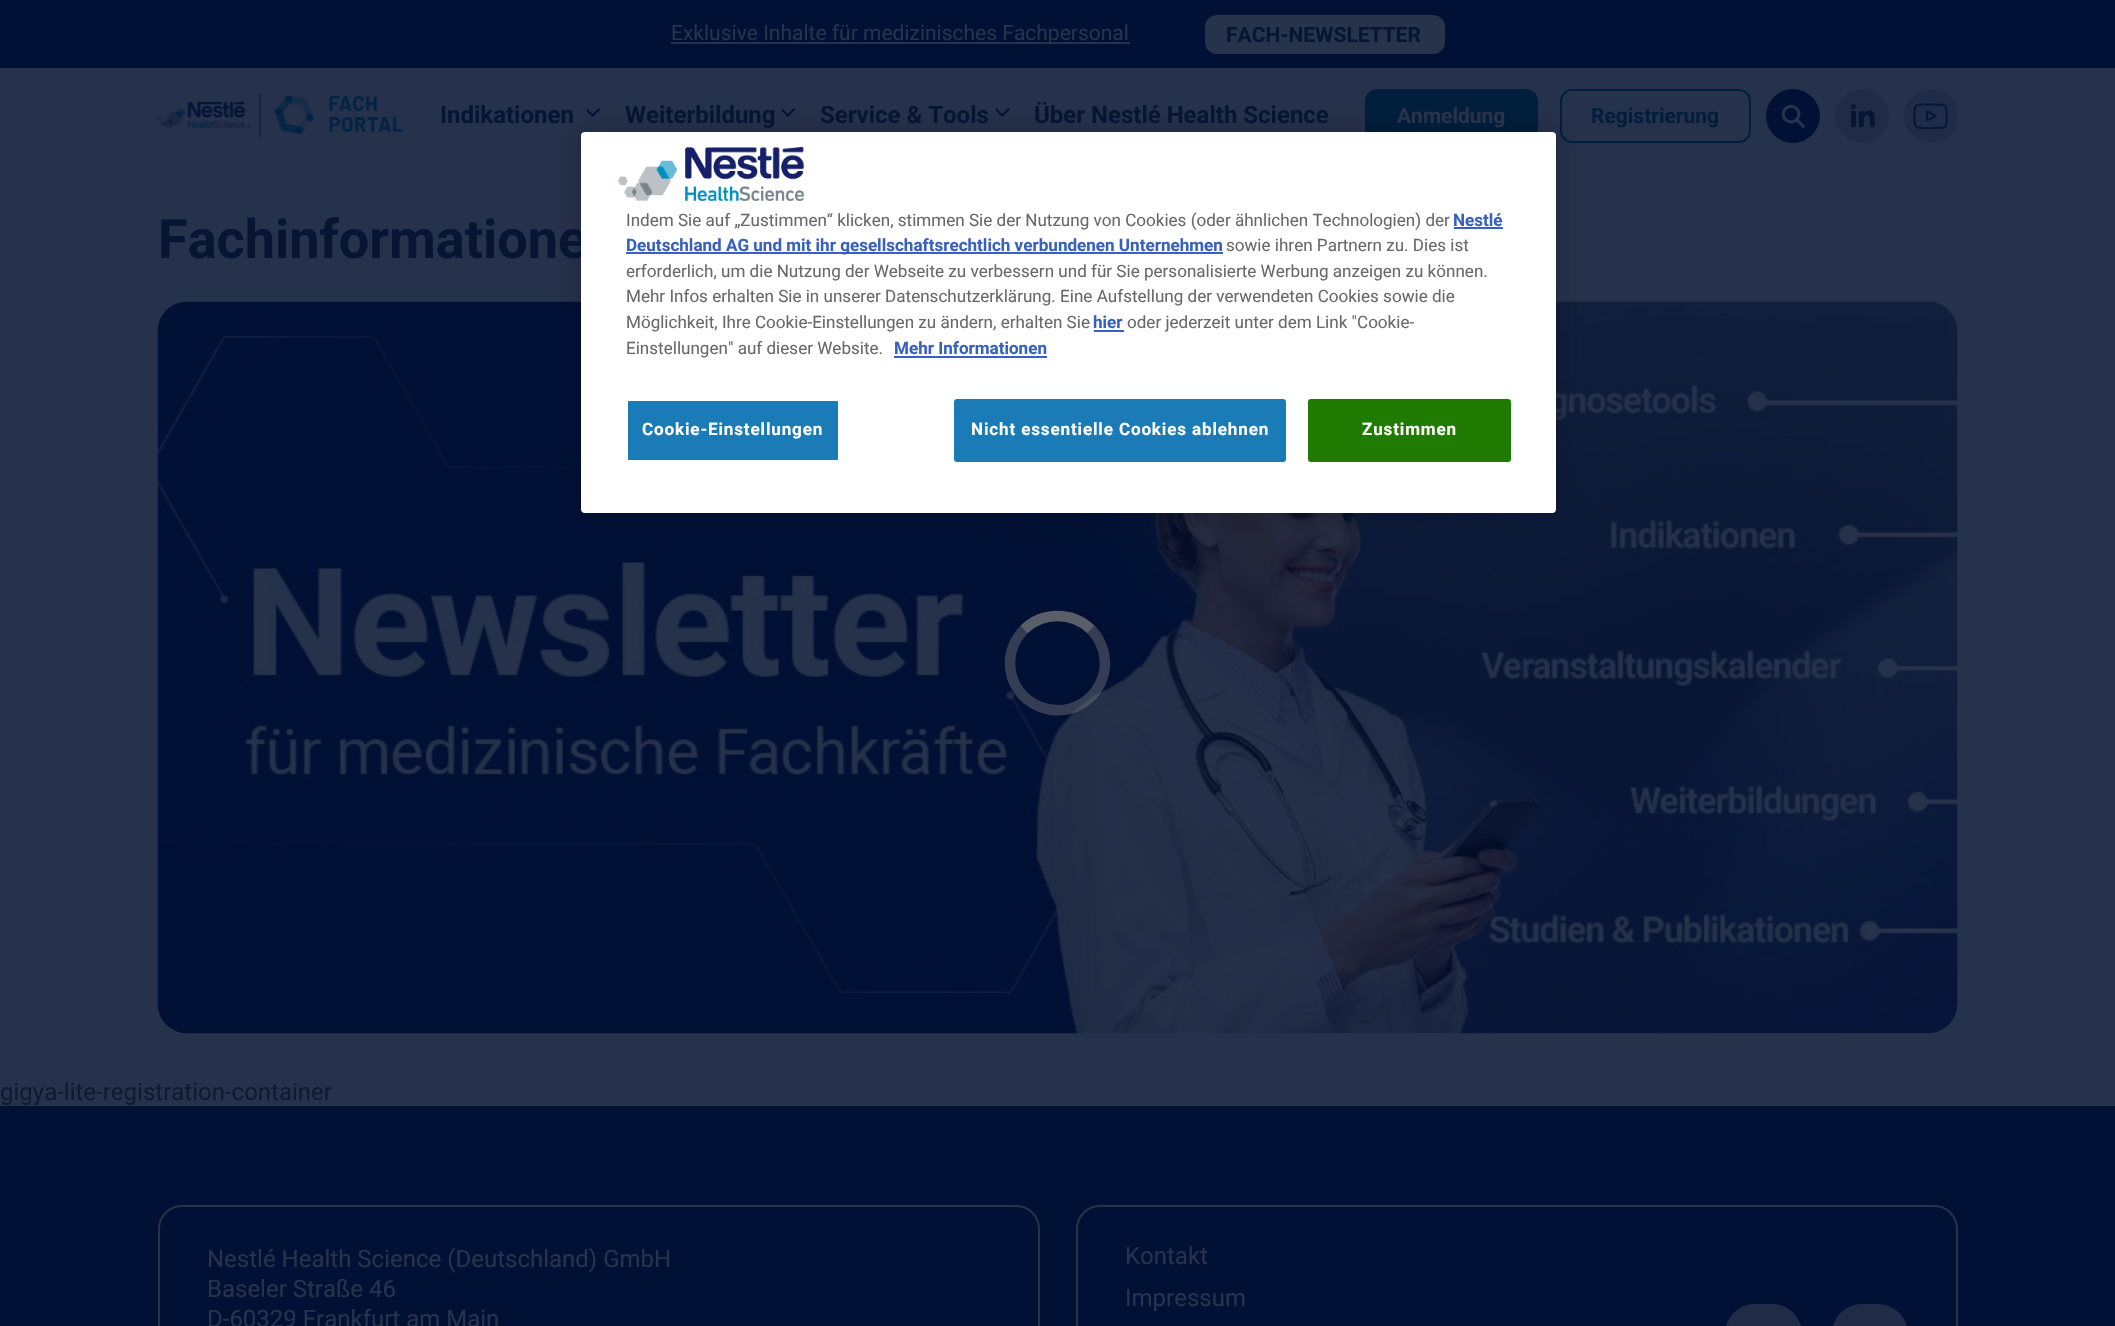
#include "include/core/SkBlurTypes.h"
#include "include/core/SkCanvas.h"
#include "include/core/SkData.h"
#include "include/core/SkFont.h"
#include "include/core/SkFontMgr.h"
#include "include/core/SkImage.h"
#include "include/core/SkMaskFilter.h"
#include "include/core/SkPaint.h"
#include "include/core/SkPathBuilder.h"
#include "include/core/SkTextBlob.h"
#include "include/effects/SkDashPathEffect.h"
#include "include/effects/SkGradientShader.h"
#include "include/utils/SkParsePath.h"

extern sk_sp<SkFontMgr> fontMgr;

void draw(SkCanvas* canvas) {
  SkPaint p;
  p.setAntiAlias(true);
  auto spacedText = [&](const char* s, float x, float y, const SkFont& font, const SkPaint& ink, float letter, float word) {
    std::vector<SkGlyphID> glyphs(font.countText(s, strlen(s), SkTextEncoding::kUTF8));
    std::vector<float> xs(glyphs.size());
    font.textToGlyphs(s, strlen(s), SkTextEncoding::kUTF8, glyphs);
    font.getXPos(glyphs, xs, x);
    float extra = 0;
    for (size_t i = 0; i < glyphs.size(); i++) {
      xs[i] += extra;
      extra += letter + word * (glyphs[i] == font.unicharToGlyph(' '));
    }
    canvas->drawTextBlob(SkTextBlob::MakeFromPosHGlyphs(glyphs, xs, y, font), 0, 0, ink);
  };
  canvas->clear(SkColorSetRGB(38, 49, 75));
  p.setColor(SkColorSetRGB(1, 17, 53));
  canvas->drawRect(SkRect::MakeLTRB(0, 0, 2115, 68), p);
  p.setColor(SkColorSetRGB(39, 50, 75));
  canvas->drawRect(SkRect::MakeLTRB(671, 42, 1130, 44), p);
  canvas->drawRoundRect(SkRect::MakeLTRB(1205, 15, 1445, 54), 12, 12, p);
  canvas->drawImageRect(SkImages::DeferredFromEncodedData(SkData::MakeFromFileName("images/1.png")), SkRect::MakeLTRB(157, 92, 404, 138), SkSamplingOptions());
  canvas->drawImageRect(SkImages::DeferredFromEncodedData(SkData::MakeFromFileName("images/2.png")), SkRect::MakeLTRB(587, 108, 601, 117), SkSamplingOptions());
  canvas->drawImageRect(SkImages::DeferredFromEncodedData(SkData::MakeFromFileName("images/2.png")), SkRect::MakeLTRB(782, 108, 796, 117), SkSamplingOptions());
  canvas->drawImageRect(SkImages::DeferredFromEncodedData(SkData::MakeFromFileName("images/3.png")), SkRect::MakeLTRB(996, 108, 1010, 117), SkSamplingOptions());
  p.setColor(SkColorSetRGB(1, 30, 61));
  canvas->drawRoundRect(SkRect::MakeLTRB(1366, 90, 1537, 142), 11, 11, p);
  p.setStyle(SkPaint::kStroke_Style);
  p.setStrokeWidth(2);
  canvas->drawRoundRect(SkRect::MakeLTRB(1366, 90, 1537, 142), 11, 11, p);
  canvas->drawRoundRect(SkRect::MakeLTRB(1561, 90, 1750, 142), 11, 11, p);
  p.setStyle(SkPaint::kFill_Style);
  p.setColor(SkColorSetRGB(1, 17, 53));
  canvas->drawCircle(1793, 116, 27, p);
  canvas->drawImageRect(SkImages::DeferredFromEncodedData(SkData::MakeFromFileName("images/4.png")), SkRect::MakeLTRB(1781, 104, 1805, 128), SkSamplingOptions());
  p.setColor(SkColorSetRGB(31, 43, 71));
  canvas->drawCircle(1862, 116, 27, p);
  canvas->drawImageRect(SkImages::DeferredFromEncodedData(SkData::MakeFromFileName("images/5.png")), SkRect::MakeLTRB(1850, 104, 1875, 127), SkSamplingOptions());
  canvas->drawCircle(1931, 116, 27, p);
  canvas->drawImageRect(SkImages::DeferredFromEncodedData(SkData::MakeFromFileName("images/6.png")), SkRect::MakeLTRB(1913, 103, 1948, 130), SkSamplingOptions());
  canvas->drawImageRect(SkImages::DeferredFromEncodedData(SkData::MakeFromFileName("images/7.png")), SkRect::MakeLTRB(157, 301, 1958, 1034), SkSamplingOptions());
  p.setStyle(SkPaint::kStroke_Style);
  p.setStrokeWidth(10.5f);
  p.setColor(SkColorSetRGB(90, 94, 105));
  canvas->drawPath(SkPathBuilder().moveTo(1024, 629.5f).cubicTo(1042.5f, 611.5f, 1072.5f, 611.5f, 1091, 629.5f).detach(), p);
  p.setColor(SkColorSetARGB(102, 128, 128, 128));
  canvas->drawPath(SkPathBuilder().moveTo(1091, 629.5f).cubicTo(1102, 640.5f, 1107, 657, 1104, 672.5f).cubicTo(1102, 681.5f, 1097.5f, 690, 1091, 696.5f).cubicTo(1061.5f, 726, 1010, 705, 1010, 663).cubicTo(1010, 650.5f, 1015.5f, 638.5f, 1024, 629.5f).detach(), p);
  p.setStyle(SkPaint::kFill_Style);
  p.setColor(SkColorSetRGB(1, 17, 53));
  canvas->drawRect(SkRect::MakeLTRB(0, 1106, 2115, 1326), p);
  p.setStyle(SkPaint::kStroke_Style);
  p.setStrokeWidth(2);
  p.setColor(SkColorSetRGB(39, 50, 75));
  canvas->drawRoundRect(SkRect::MakeLTRB(159, 1206, 1039, 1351), 23, 23, p);
  canvas->drawRoundRect(SkRect::MakeLTRB(1077, 1206, 1957, 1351), 23, 23, p);
  p.setStyle(SkPaint::kFill_Style);
  p.setColor(SkColorSetRGB(31, 43, 71));
  canvas->drawRoundRect(SkRect::MakeLTRB(1725, 1304, 1802, 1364), 38, 38, p);
  canvas->drawRoundRect(SkRect::MakeLTRB(1832, 1304, 1908, 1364), 38, 38, p);
  p.setColor(SkColorSetARGB(51, 0, 0, 0));
  p.setMaskFilter(SkMaskFilter::MakeBlur(kNormal_SkBlurStyle, 13.5f));
  canvas->drawRoundRect(SkRect::MakeLTRB(581, 132, 1556, 513), 4, 4, p);
  p.setMaskFilter(nullptr);
  SkFont font1(fontMgr->matchFamilyStyle("Roboto", SkFontStyle::Normal()), 21);
  font1.setSubpixel(true);
  p.setColor(SkColorSetRGB(39, 50, 75));
  canvas->drawString("Exklusive Inhalte für medizinisches Fachpersonal", 671, 40, font1, p);
  SkFont font2(fontMgr->matchFamilyStyle("Roboto", SkFontStyle::Bold()), 21);
  font2.setSubpixel(true);
  p.setColor(SkColorSetRGB(6, 21, 52));
  canvas->drawString("FACH-NEWSLETTER", 1226, 42, font2, p);
  SkFont font3(fontMgr->matchFamilyStyle("Roboto", SkFontStyle::Bold()), 24);
  font3.setSubpixel(true);
  canvas->drawString("Indikationen", 440, 123, font3, p);
  canvas->drawString("Weiterbildung", 625, 123, font3, p);
  canvas->drawString("Service & Tools", 820, 123, font3, p);
  canvas->drawString("Über Nestlé Health Science", 1034, 123, font3, p);
  p.setColor(SkColorSetRGB(39, 50, 75));
  canvas->drawString("Anmeldung", 1397, 123, font2, p);
  p.setColor(SkColorSetRGB(1, 30, 61));
  canvas->drawString("Registrierung", 1591, 123, font2, p);
  SkFont font4(fontMgr->matchFamilyStyle("Roboto", SkFontStyle::Bold()), 54);
  font4.setSubpixel(true);
  p.setColor(SkColorSetRGB(6, 21, 52));
  canvas->drawString("Fachinformatione", 158, 258, font4, p);
  SkFont font5(fontMgr->matchFamilyStyle("Roboto", SkFontStyle::Normal()), 24);
  font5.setSubpixel(true);
  p.setColor(SkColorSetRGB(14, 25, 50));
  canvas->drawString("gigya-lite-registration-container", 0, 1100, font5, p);
  p.setColor(SkColorSetRGB(39, 50, 75));
  canvas->drawString("Nestlé Health Science (Deutschland) GmbH", 207, 1267, font5, p);
  canvas->drawString("Baseler Straße 46", 207, 1297, font5, p);
  canvas->drawString("D-60329 Frankfurt am Main", 207, 1327, font5, p);
  canvas->drawString("Kontakt", 1125, 1264, font5, p);
  canvas->drawString("Impressum", 1125, 1306, font5, p);
  p.setColor(SK_ColorWHITE);
  canvas->drawRoundRect(SkRect::MakeLTRB(581, 132, 1556, 513), 4, 4, p);
  canvas->drawImageRect(SkImages::DeferredFromEncodedData(SkData::MakeFromFileName("images/8.png")), SkRect::MakeLTRB(618, 147, 804, 201), SkSamplingOptions());
  SkFont font6(fontMgr->matchFamilyStyle("Roboto", SkFontStyle::Normal()), 17.07f);
  font6.setSubpixel(true);
  p.setColor(SkColorSetRGB(105, 105, 105));
  canvas->drawString("Indem Sie auf „Zustimmen“ klicken, stimmen Sie der Nutzung von Cookies (oder ähnlichen Technologien) der", 626, 226, font6, p);
  SkFont font7(fontMgr->matchFamilyStyle("Roboto", SkFontStyle::Bold()), 17.07f);
  font7.setSubpixel(true);
  p.setColor(SkColorSetRGB(56, 96, 190));
  canvas->drawString("Nestlé", 1453, 226, font7, p);
  canvas->drawRect(SkRect::MakeLTRB(1454, 227, 1503, 229), p);
  canvas->drawRect(SkRect::MakeLTRB(626, 252, 1223, 254), p);
  canvas->drawString("Deutschland AG und mit ihr gesellschaftsrechtlich verbundenen Unternehmen", 626, 251, font7, p);
  p.setColor(SkColorSetRGB(105, 105, 105));
  canvas->drawString("sowie ihren Partnern zu. Dies ist", 1226, 251, font6, p);
  canvas->drawString("erforderlich, um die Nutzung der Webseite zu verbessern und für Sie personalisierte Werbung anzeigen zu können.", 626, 277, font6, p);
  canvas->drawString("Mehr Infos erhalten Sie in unserer Datenschutzerklärung. Eine Aufstellung der verwendeten Cookies sowie die", 626, 302, font6, p);
  canvas->drawString("Möglichkeit, Ihre Cookie-Einstellungen zu ändern, erhalten Sie", 626, 328, font6, p);
  p.setColor(SkColorSetRGB(56, 96, 190));
  canvas->drawString("hier", 1093, 328, font7, p);
  canvas->drawRect(SkRect::MakeLTRB(1094, 330, 1124, 332), p);
  p.setColor(SkColorSetRGB(105, 105, 105));
  canvas->drawString("oder jederzeit unter dem Link \"Cookie-", 1127, 328, font6, p);
  canvas->drawString("Einstellungen\" auf dieser Website.", 626, 354, font6, p);
  p.setColor(SkColorSetRGB(56, 96, 190));
  canvas->drawString("Mehr Informationen", 894, 354, font7, p);
  canvas->drawRect(SkRect::MakeLTRB(894, 356, 1047, 358), p);
  p.setColor(SkColorSetRGB(27, 123, 183));
  canvas->drawRoundRect(SkRect::MakeLTRB(627, 400, 839, 461), 2, 2, p);
  p.setStyle(SkPaint::kStroke_Style);
  p.setColor(SK_ColorWHITE);
  canvas->drawRoundRect(SkRect::MakeLTRB(627, 400, 839, 461), 2, 2, p);
  p.setStyle(SkPaint::kFill_Style);
  spacedText("Cookie-Einstellungen", 642, 435, font7, p, 0.85f, 0);
  p.setColor(SkColorSetRGB(27, 123, 183));
  canvas->drawRoundRect(SkRect::MakeLTRB(955, 400, 1285, 461), 2, 2, p);
  p.setStyle(SkPaint::kStroke_Style);
  canvas->drawRoundRect(SkRect::MakeLTRB(955, 400, 1285, 461), 2, 2, p);
  p.setStyle(SkPaint::kFill_Style);
  p.setColor(SK_ColorWHITE);
  spacedText("Nicht essentielle Cookies ablehnen", 971, 435, font7, p, 0.85f, 0);
  p.setColor(SkColorSetRGB(32, 123, 2));
  canvas->drawRoundRect(SkRect::MakeLTRB(1309, 400, 1510, 461), 2, 2, p);
  p.setStyle(SkPaint::kStroke_Style);
  canvas->drawRoundRect(SkRect::MakeLTRB(1309, 400, 1510, 461), 2, 2, p);
  p.setStyle(SkPaint::kFill_Style);
  p.setColor(SK_ColorWHITE);
  spacedText("Zustimmen", 1362, 435, font7, p, 0.85f, 0);
}
